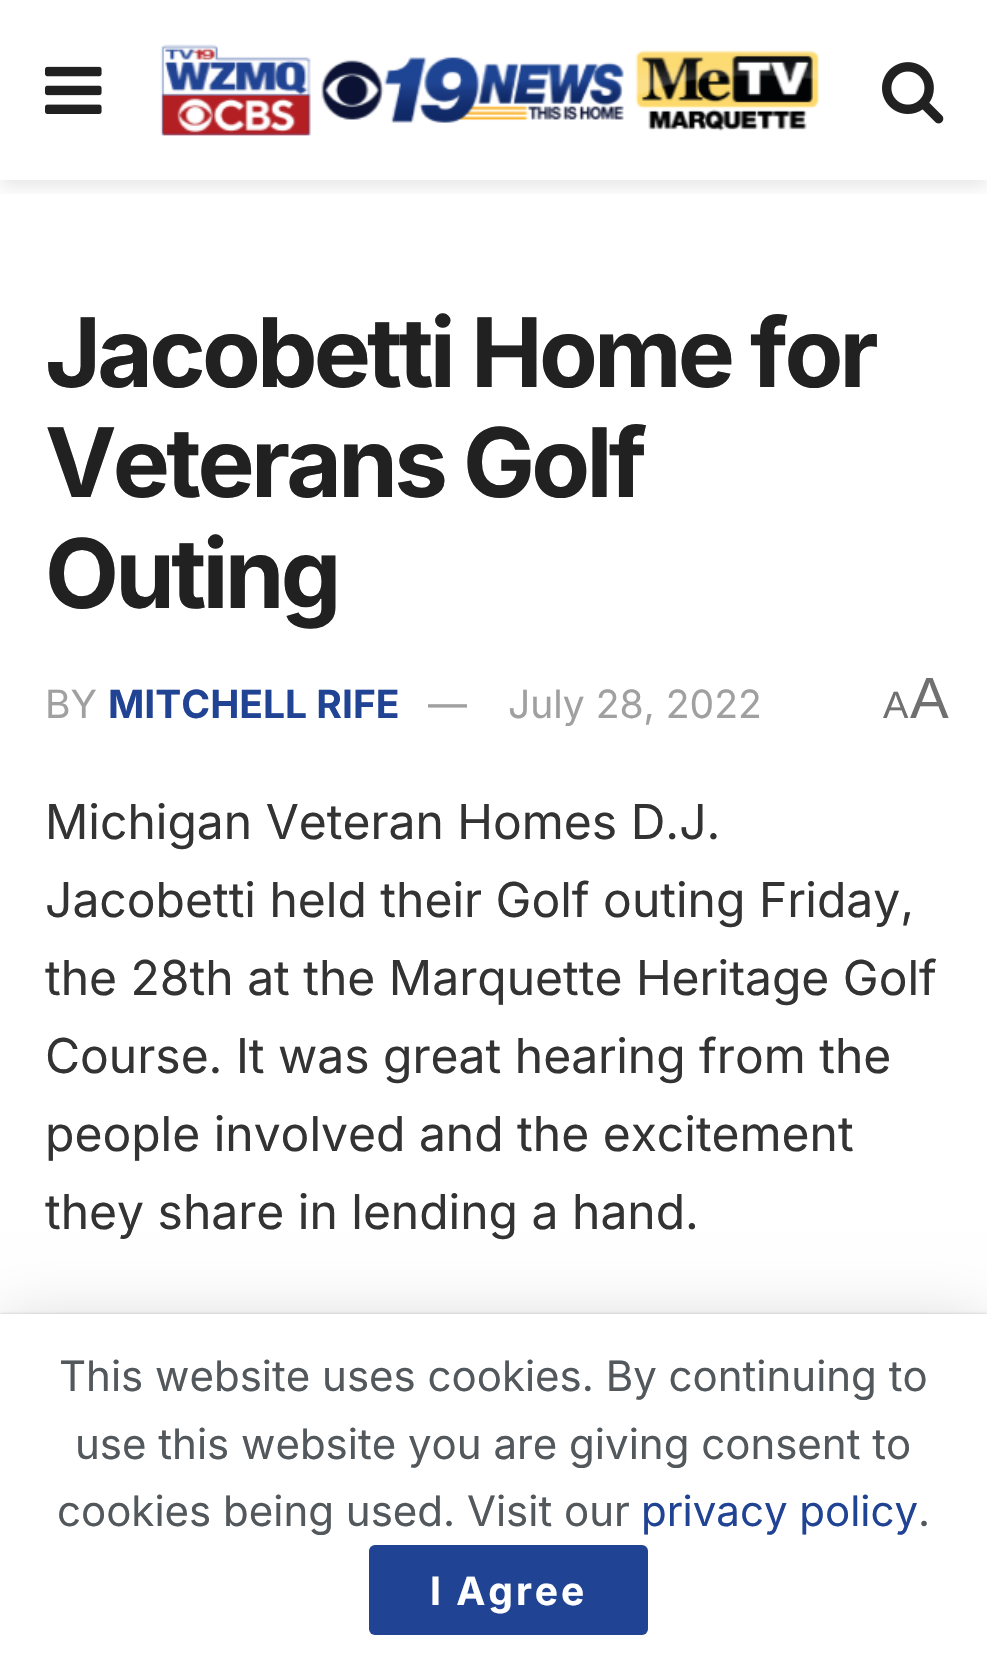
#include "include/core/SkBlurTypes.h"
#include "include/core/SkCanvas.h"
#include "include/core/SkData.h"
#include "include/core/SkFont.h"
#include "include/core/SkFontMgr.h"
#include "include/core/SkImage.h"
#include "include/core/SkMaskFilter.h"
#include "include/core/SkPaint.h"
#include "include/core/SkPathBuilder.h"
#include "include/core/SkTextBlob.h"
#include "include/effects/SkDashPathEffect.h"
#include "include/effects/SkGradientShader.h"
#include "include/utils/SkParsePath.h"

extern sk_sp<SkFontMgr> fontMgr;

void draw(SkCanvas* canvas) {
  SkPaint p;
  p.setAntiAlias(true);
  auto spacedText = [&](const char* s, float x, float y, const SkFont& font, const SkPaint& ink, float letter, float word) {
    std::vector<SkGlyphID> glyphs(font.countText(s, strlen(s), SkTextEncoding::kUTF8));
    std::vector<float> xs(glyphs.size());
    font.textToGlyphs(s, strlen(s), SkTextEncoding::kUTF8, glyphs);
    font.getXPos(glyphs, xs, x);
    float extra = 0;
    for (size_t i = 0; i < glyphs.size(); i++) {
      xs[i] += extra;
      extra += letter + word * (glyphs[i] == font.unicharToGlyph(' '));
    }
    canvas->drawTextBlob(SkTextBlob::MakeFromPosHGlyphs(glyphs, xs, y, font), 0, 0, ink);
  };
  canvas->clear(SK_ColorWHITE);
  canvas->save();
  canvas->clipRect(SkRect::MakeLTRB(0, 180, 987, 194));
  p.setColor(SkColorSetARGB(26, 0, 0, 0));
  p.setMaskFilter(SkMaskFilter::MakeBlur(kNormal_SkBlurStyle, 9));
  canvas->drawRect(SkRect::MakeLTRB(0, 6, 987, 186), p);
  p.setMaskFilter(nullptr);
  canvas->restore();
  canvas->drawImageRect(SkImages::DeferredFromEncodedData(SkData::MakeFromFileName("images/1.png")), SkRect::MakeLTRB(45, 66, 102, 114), SkSamplingOptions());
  canvas->drawImageRect(SkImages::DeferredFromEncodedData(SkData::MakeFromFileName("images/2.png")), SkRect::MakeLTRB(160, 44, 820, 136), SkSamplingOptions());
  canvas->drawImageRect(SkImages::DeferredFromEncodedData(SkData::MakeFromFileName("images/3.png")), SkRect::MakeLTRB(882, 62, 944, 124), SkSamplingOptions());
  p.setColor(SkColorSetARGB(38, 0, 0, 0));
  p.setMaskFilter(SkMaskFilter::MakeBlur(kNormal_SkBlurStyle, 30));
  canvas->drawRect(SkRect::MakeLTRB(0, 1320, 987, 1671), p);
  p.setMaskFilter(nullptr);
  p.setColor(SkColorSetARGB(51, 0, 0, 0));
  p.setMaskFilter(SkMaskFilter::MakeBlur(kNormal_SkBlurStyle, 1.5f));
  canvas->drawRect(SkRect::MakeLTRB(0, 1314, 987, 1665), p);
  p.setMaskFilter(nullptr);
  p.setColor(SK_ColorWHITE);
  canvas->drawRect(SkRect::MakeLTRB(0, 1314, 987, 1663), p);
  p.setColor(SkColorSetRGB(32, 67, 147));
  canvas->drawRoundRect(SkRect::MakeLTRB(369, 1545, 648, 1635), 6, 6, p);
  SkFont font1(fontMgr->matchFamilyStyle("Inter", SkFontStyle::Bold()), 96);
  font1.setSubpixel(true);
  p.setColor(SkColorSetRGB(33, 33, 33));
  spacedText("Jacobetti Home for", 45, 387, font1, p, -3.8f, 0);
  spacedText("Veterans Golf", 45, 497, font1, p, -3.8f, 0);
  spacedText("Outing", 45, 608, font1, p, -3.8f, 0);
  SkFont font2(fontMgr->matchFamilyStyle("Inter", SkFontStyle::Normal()), 39);
  font2.setSubpixel(true);
  p.setColor(SkColorSetRGB(160, 160, 160));
  canvas->drawString("BY", 45, 718, font2, p);
  SkFont font3(fontMgr->matchFamilyStyle("Inter", SkFontStyle::Bold()), 39);
  font3.setSubpixel(true);
  p.setColor(SkColorSetRGB(32, 67, 147));
  canvas->drawString("MITCHELL RIFE", 108, 718, font3, p);
  p.setColor(SkColorSetRGB(160, 160, 160));
  canvas->drawString("—", 428, 718, font2, p);
  canvas->drawString("July 28, 2022", 508, 718, font2, p);
  SkFont font4(fontMgr->matchFamilyStyle("Liberation Sans", SkFontStyle::Normal()), 38);
  font4.setSubpixel(true);
  p.setColor(SkColorSetRGB(112, 112, 112));
  canvas->drawString("A", 883, 718, font4, p);
  SkFont font5(fontMgr->matchFamilyStyle("Liberation Sans", SkFontStyle::Normal()), 58);
  font5.setSubpixel(true);
  canvas->drawString("A", 910, 718, font5, p);
  SkFont font6(fontMgr->matchFamilyStyle("Inter", SkFontStyle::Normal()), 48);
  font6.setSubpixel(true);
  p.setColor(SkColorSetRGB(51, 51, 51));
  canvas->drawString("Michigan Veteran Homes D.J.", 45, 839, font6, p);
  canvas->drawString("Jacobetti held their Golf outing Friday,", 45, 917, font6, p);
  canvas->drawString("the 28th at the Marquette Heritage Golf", 45, 995, font6, p);
  canvas->drawString("Course. It was great hearing from the", 45, 1073, font6, p);
  canvas->drawString("people involved and the excitement", 45, 1151, font6, p);
  canvas->drawString("they share in lending a hand.", 45, 1229, font6, p);
  SkFont font7(fontMgr->matchFamilyStyle("Inter", SkFontStyle::Normal()), 42);
  font7.setSubpixel(true);
  p.setColor(SkColorSetRGB(83, 88, 92));
  canvas->drawString("This website uses cookies. By continuing to", 59, 1391, font7, p);
  canvas->drawString("use this website you are giving consent to", 75, 1459, font7, p);
  canvas->drawString("cookies being used. Visit our", 57, 1526, font7, p);
  p.setColor(SkColorSetRGB(32, 67, 147));
  canvas->drawString("privacy policy", 641, 1526, font7, p);
  p.setColor(SkColorSetRGB(83, 88, 92));
  canvas->drawString(".", 918, 1526, font7, p);
  p.setColor(SK_ColorWHITE);
  spacedText("I Agree", 430, 1605, font3, p, 3, 0);
}
